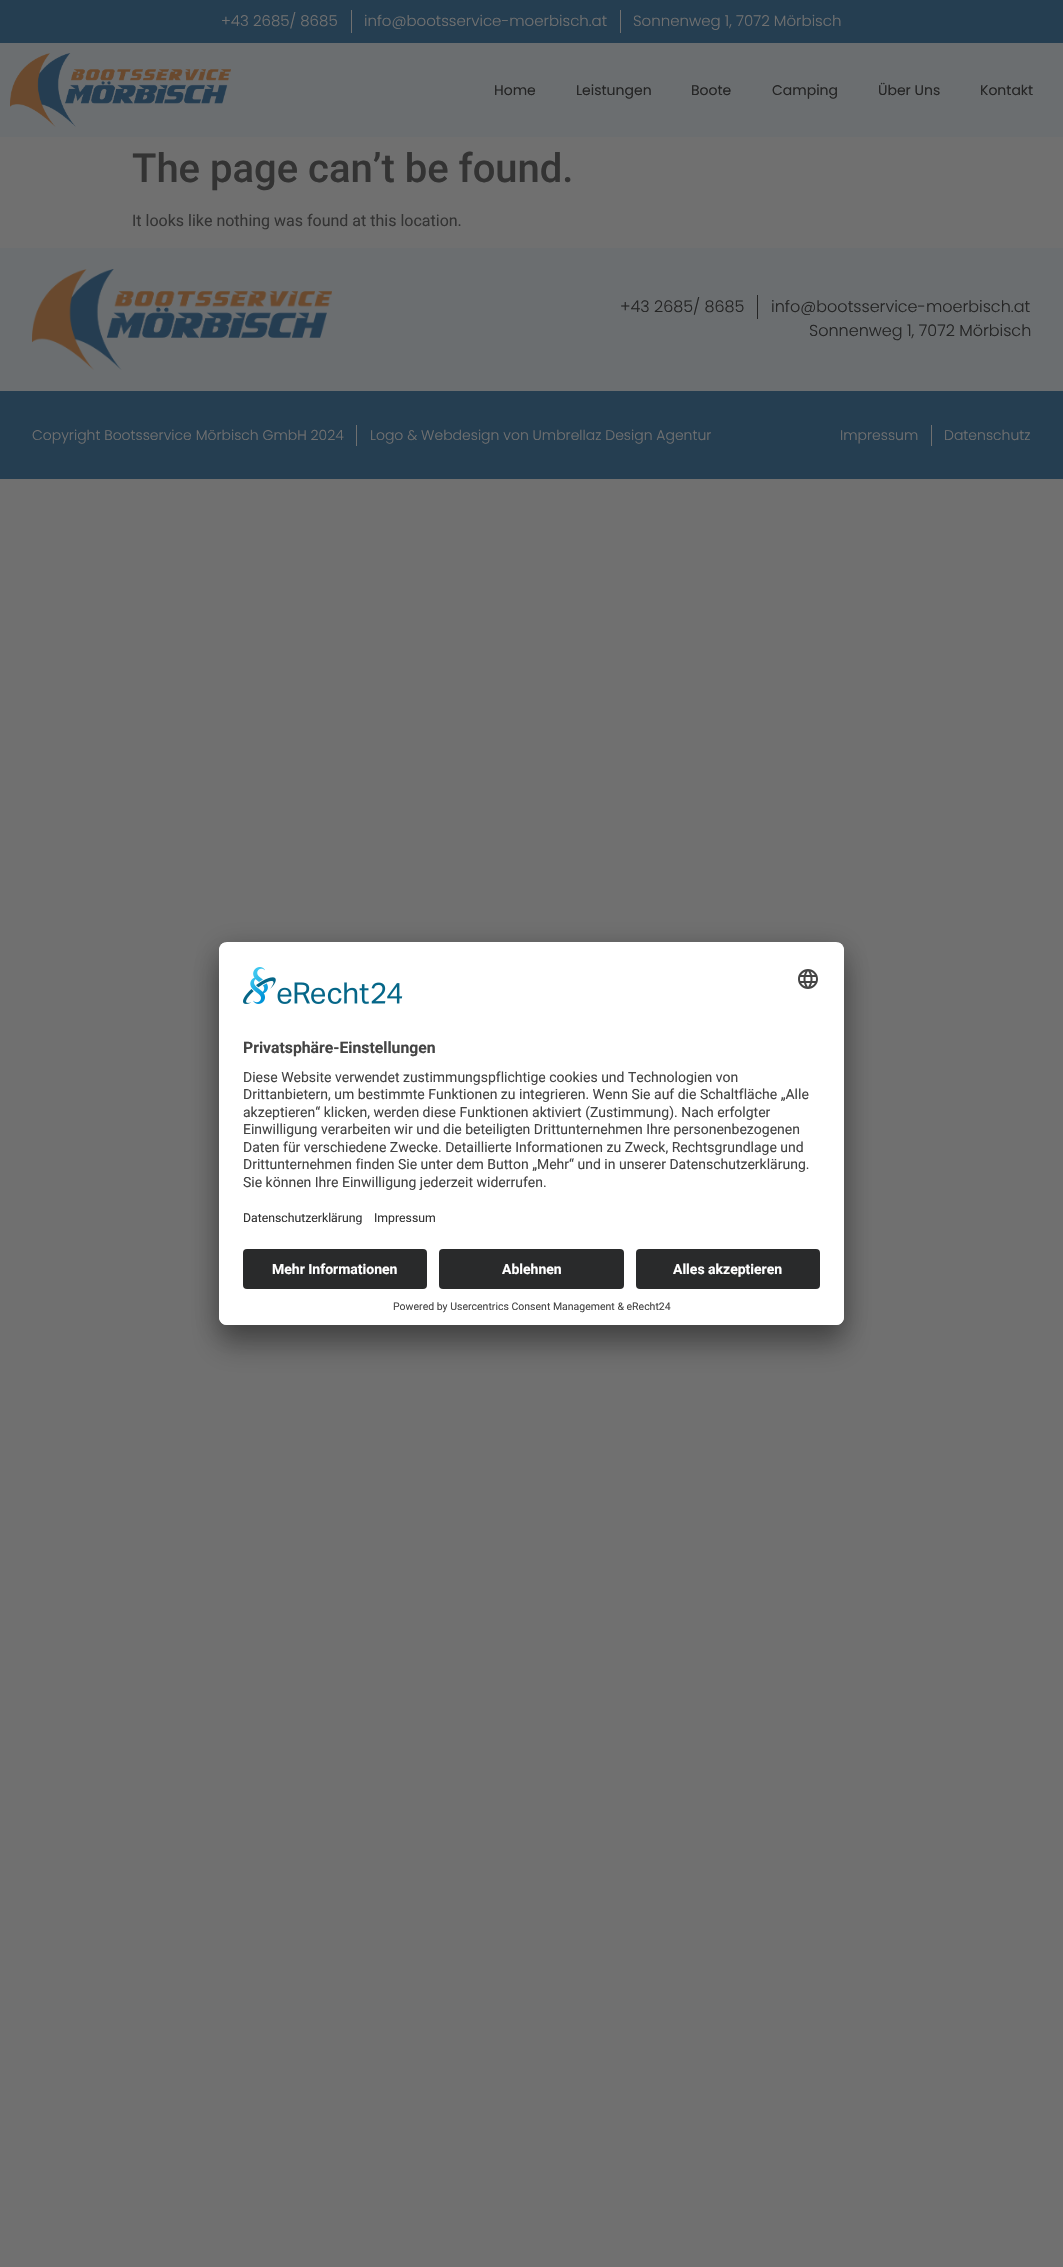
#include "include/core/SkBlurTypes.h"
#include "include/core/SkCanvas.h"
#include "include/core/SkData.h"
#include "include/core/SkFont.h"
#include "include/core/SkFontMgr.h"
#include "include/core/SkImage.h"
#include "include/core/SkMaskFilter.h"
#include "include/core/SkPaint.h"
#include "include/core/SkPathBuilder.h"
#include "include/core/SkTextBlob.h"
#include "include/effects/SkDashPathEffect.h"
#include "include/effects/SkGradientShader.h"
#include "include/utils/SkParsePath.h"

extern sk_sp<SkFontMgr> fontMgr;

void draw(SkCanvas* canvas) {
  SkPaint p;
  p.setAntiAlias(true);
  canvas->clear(SkColorSetRGB(112, 112, 112));
  p.setColor(SkColorSetRGB(37, 62, 81));
  canvas->drawRect(SkRect::MakeLTRB(0, 0, 1063, 43), p);
  p.setColor(SkColorSetRGB(112, 112, 112));
  canvas->drawRect(SkRect::MakeLTRB(351, 10, 352, 33), p);
  canvas->drawRect(SkRect::MakeLTRB(620, 10, 621, 33), p);
  p.setColor(SkColorSetRGB(107, 110, 112));
  canvas->drawRect(SkRect::MakeLTRB(0, 43, 1063, 137), p);
  canvas->drawImageRect(SkImages::DeferredFromEncodedData(SkData::MakeFromFileName("images/1.png")), SkRect::MakeLTRB(10, 53, 231, 127), SkSamplingOptions());
  canvas->drawRect(SkRect::MakeLTRB(0, 248, 1063, 391), p);
  canvas->drawImageRect(SkImages::DeferredFromEncodedData(SkData::MakeFromFileName("images/2.png")), SkRect::MakeLTRB(32, 269, 332, 370), SkSamplingOptions());
  p.setColor(SkColorSetRGB(36, 36, 36));
  canvas->drawRect(SkRect::MakeLTRB(757, 295, 758, 319), p);
  p.setColor(SkColorSetRGB(37, 62, 81));
  canvas->drawRect(SkRect::MakeLTRB(0, 391, 1063, 479), p);
  p.setColor(SkColorSetRGB(112, 112, 112));
  canvas->drawRect(SkRect::MakeLTRB(356, 425, 357, 446), p);
  canvas->drawRect(SkRect::MakeLTRB(931, 425, 932, 446), p);
  p.setColor(SkColorSetARGB(77, 0, 0, 0));
  p.setMaskFilter(SkMaskFilter::MakeBlur(kNormal_SkBlurStyle, 14));
  canvas->drawRoundRect(SkRect::MakeLTRB(219, 962, 844, 1345), 8, 8, p);
  p.setMaskFilter(nullptr);
  p.setColor(SkColorSetARGB(56, 0, 0, 0));
  p.setMaskFilter(SkMaskFilter::MakeBlur(kNormal_SkBlurStyle, 13));
  canvas->drawRoundRect(SkRect::MakeLTRB(219, 947, 844, 1330), 8, 8, p);
  p.setMaskFilter(nullptr);
  p.setColor(SK_ColorWHITE);
  canvas->drawRoundRect(SkRect::MakeLTRB(219, 942, 844, 1325), 8, 8, p);
  canvas->save();
  canvas->clipPath(SkPathBuilder().moveTo(227, 942).lineTo(836, 942).cubicTo(840.5f, 942, 844, 945.5f, 844, 950).lineTo(844, 1317).cubicTo(844, 1321.5f, 840.5f, 1325, 836, 1325).lineTo(227, 1325).cubicTo(222.5f, 1325, 219, 1321.5f, 219, 1317).lineTo(219, 950).cubicTo(219, 945.5f, 222.5f, 942, 227, 942).close().detach(), true);
  canvas->clipPath(SkPathBuilder().moveTo(227, 942).lineTo(836, 942).cubicTo(840.5f, 942, 844, 945.5f, 844, 950).lineTo(844, 1241).lineTo(219, 1241).lineTo(219, 950).cubicTo(219, 945.5f, 222.5f, 942, 227, 942).close().detach(), true);
  canvas->drawRect(SkRect::MakeLTRB(219, 943, 844, 1241), p);
  canvas->restore();
  canvas->drawImageRect(SkImages::DeferredFromEncodedData(SkData::MakeFromFileName("images/3.png")), SkRect::MakeLTRB(243, 967, 403, 1004), SkSamplingOptions());
  canvas->drawImageRect(SkImages::DeferredFromEncodedData(SkData::MakeFromFileName("images/4.png")), SkRect::MakeLTRB(798, 969, 818, 989), SkSamplingOptions());
  canvas->drawPath(SkPathBuilder().moveTo(219, 1241).lineTo(844, 1241).lineTo(844, 1317).cubicTo(844, 1321.5f, 840.5f, 1325, 836, 1325).lineTo(227, 1325).cubicTo(222.5f, 1325, 219, 1321.5f, 219, 1317).close().detach(), p);
  p.setColor(SkColorSetRGB(41, 42, 43));
  canvas->drawRoundRect(SkRect::MakeLTRB(243, 1249, 427, 1289), 4, 4, p);
  canvas->drawRoundRect(SkRect::MakeLTRB(439, 1249, 624, 1289), 4, 4, p);
  canvas->drawRoundRect(SkRect::MakeLTRB(636, 1249, 820, 1289), 4, 4, p);
  SkFont font1(fontMgr->matchFamilyStyle("Poppins", SkFontStyle(300, SkFontStyle::kNormal_Width, SkFontStyle::kUpright_Slant)), 15);
  font1.setSubpixel(true);
  p.setColor(SkColorSetRGB(112, 112, 112));
  canvas->drawString("+43 2685/ 8685", 221, 26, font1, p);
  canvas->drawString("info@bootsservice-moerbisch.at", 364, 26, font1, p);
  canvas->drawString("Sonnenweg 1, 7072 Mörbisch", 633, 26, font1, p);
  SkFont font2(fontMgr->matchFamilyStyle("Poppins", SkFontStyle::Normal()), 14);
  font2.setSubpixel(true);
  p.setColor(SkColorSetRGB(36, 36, 36));
  canvas->drawString("Home", 494, 95, font2, p);
  canvas->drawString("Leistungen", 576, 95, font2, p);
  canvas->drawString("Boote", 691, 95, font2, p);
  canvas->drawString("Camping", 772, 95, font2, p);
  canvas->drawString("Über Uns", 878, 95, font2, p);
  canvas->drawString("Kontakt", 980, 95, font2, p);
  SkFont font3(fontMgr->matchFamilyStyle("Roboto", SkFontStyle(500, SkFontStyle::kNormal_Width, SkFontStyle::kUpright_Slant)), 40);
  font3.setSubpixel(true);
  p.setColor(SkColorSetRGB(51, 51, 51));
  canvas->drawString("The page can’t be found.", 132, 182, font3, p);
  SkFont font4(fontMgr->matchFamilyStyle("Roboto", SkFontStyle::Normal()), 16);
  font4.setSubpixel(true);
  canvas->drawString("It looks like nothing was found at this location.", 132, 226, font4, p);
  SkFont font5(fontMgr->matchFamilyStyle("Poppins", SkFontStyle(300, SkFontStyle::kNormal_Width, SkFontStyle::kUpright_Slant)), 16);
  font5.setSubpixel(true);
  p.setColor(SkColorSetRGB(36, 36, 36));
  canvas->drawString("+43 2685/ 8685", 620, 312, font5, p);
  canvas->drawString("info@bootsservice-moerbisch.at", 771, 312, font5, p);
  canvas->drawString("Sonnenweg 1, 7072 Mörbisch", 809, 336, font5, p);
  SkFont font6(fontMgr->matchFamilyStyle("Poppins", SkFontStyle(300, SkFontStyle::kNormal_Width, SkFontStyle::kUpright_Slant)), 14);
  font6.setSubpixel(true);
  p.setColor(SkColorSetRGB(112, 112, 112));
  canvas->drawString("Copyright Bootsservice Mörbisch GmbH 2024", 32, 440, font6, p);
  canvas->drawString("Logo & Webdesign von Umbrellaz Design Agentur", 370, 440, font6, p);
  canvas->drawString("Impressum", 840, 440, font6, p);
  canvas->drawString("Datenschutz", 944, 440, font6, p);
  SkFont font7(fontMgr->matchFamilyStyle("Roboto", SkFontStyle::Bold()), 15.75f);
  font7.setSubpixel(true);
  p.setColor(SkColorSetRGB(68, 68, 68));
  canvas->drawString("Privatsphäre-Einstellungen", 243, 1053, font7, p);
  SkFont font8(fontMgr->matchFamilyStyle("Roboto", SkFontStyle::Normal()), 14);
  font8.setSubpixel(true);
  canvas->drawString("Diese Website verwendet zustimmungspflichtige cookies und Technologien von", 243, 1082, font8, p);
  canvas->drawString("Drittanbietern, um bestimmte Funktionen zu integrieren. Wenn Sie auf die Schaltfläche „Alle", 243, 1099, font8, p);
  canvas->drawString("akzeptieren“ klicken, werden diese Funktionen aktiviert (Zustimmung). Nach erfolgter", 243, 1117, font8, p);
  canvas->drawString("Einwilligung verarbeiten wir und die beteiligten Drittunternehmen Ihre personenbezogenen", 243, 1134, font8, p);
  canvas->drawString("Daten für verschiedene Zwecke. Detaillierte Informationen zu Zweck, Rechtsgrundlage und", 243, 1152, font8, p);
  canvas->drawString("Drittunternehmen finden Sie unter dem Button „Mehr“ und in unserer Datenschutzerklärung.", 243, 1169, font8, p);
  canvas->drawString("Sie können Ihre Einwilligung jederzeit widerrufen.", 243, 1187, font8, p);
  SkFont font9(fontMgr->matchFamilyStyle("Roboto", SkFontStyle::Normal()), 12.25f);
  font9.setSubpixel(true);
  p.setColor(SkColorSetRGB(51, 51, 51));
  canvas->drawString("Datenschutzerklärung", 243, 1222, font9, p);
  canvas->drawString("Impressum", 374, 1222, font9, p);
  SkFont font10(fontMgr->matchFamilyStyle("Roboto", SkFontStyle::Bold()), 14);
  font10.setSubpixel(true);
  p.setColor(SK_ColorWHITE);
  canvas->drawString("Mehr Informationen", 272, 1274, font10, p);
  canvas->drawString("Ablehnen", 502, 1274, font10, p);
  canvas->drawString("Alles akzeptieren", 673, 1274, font10, p);
  SkFont font11(fontMgr->matchFamilyStyle("Roboto", SkFontStyle::Normal()), 10.5f);
  font11.setSubpixel(true);
  p.setColor(SkColorSetRGB(68, 68, 68));
  canvas->drawString("Powered by Usercentrics Consent Management & eRecht24", 393, 1310, font11, p);
}
